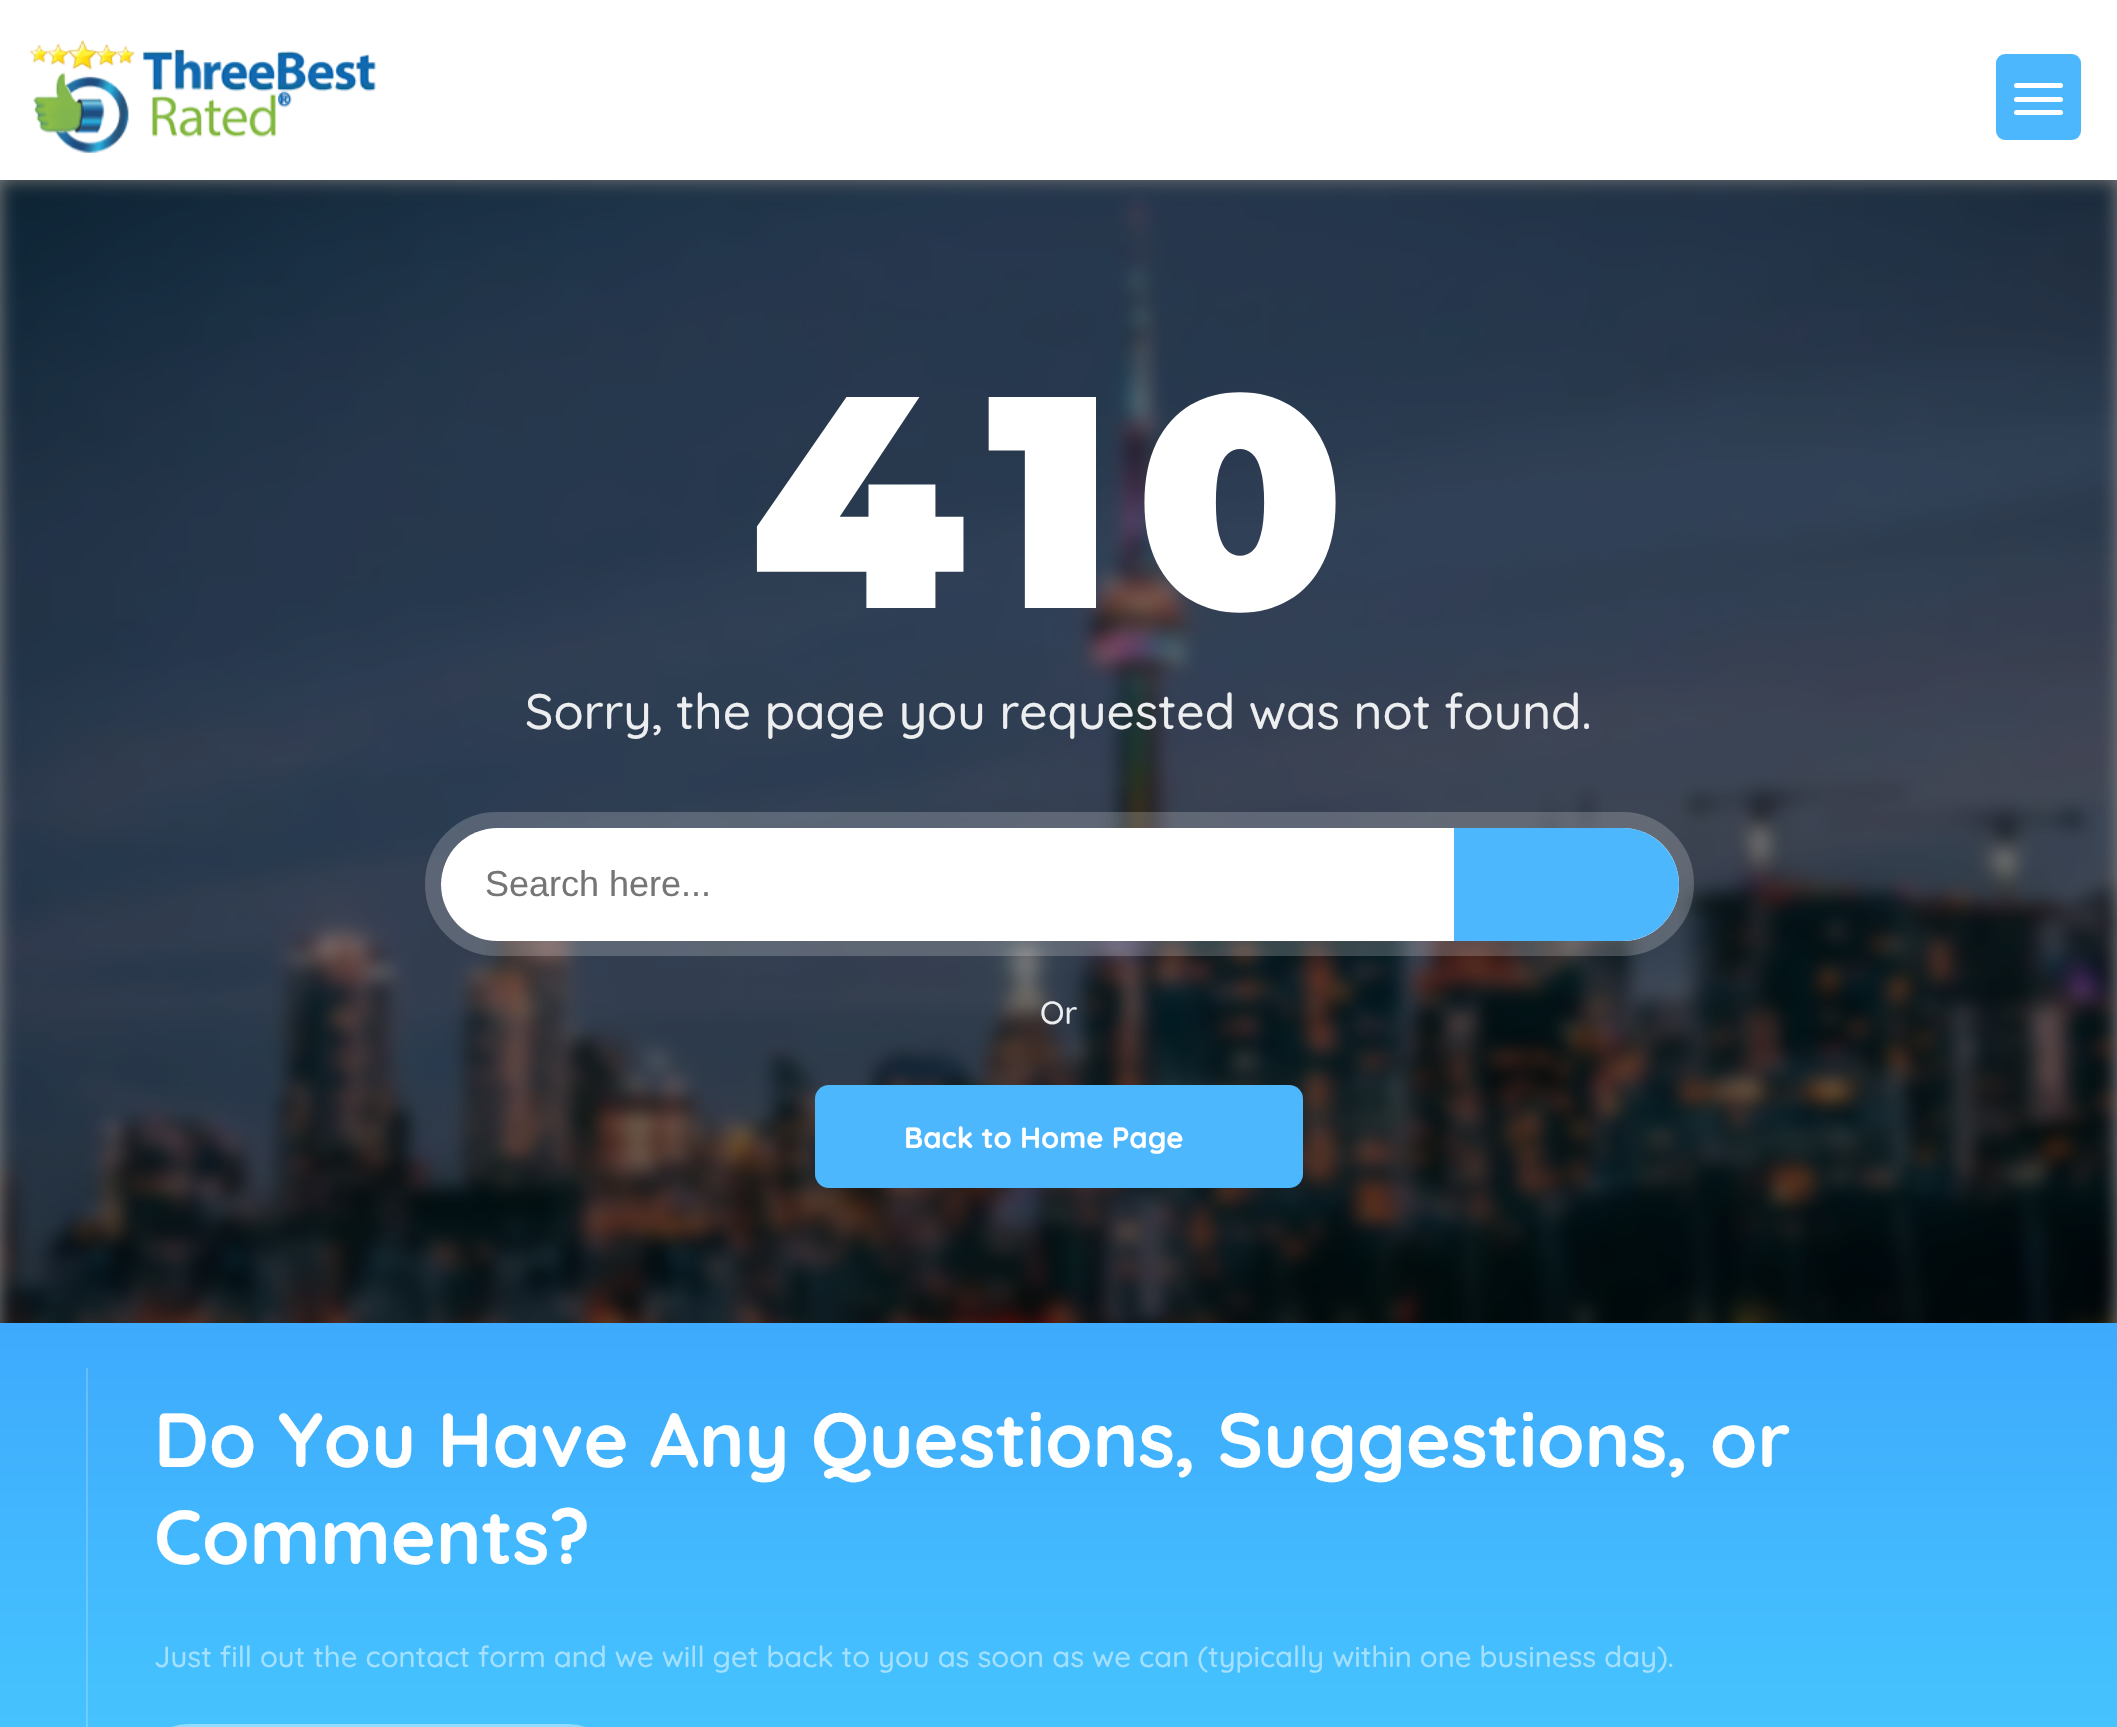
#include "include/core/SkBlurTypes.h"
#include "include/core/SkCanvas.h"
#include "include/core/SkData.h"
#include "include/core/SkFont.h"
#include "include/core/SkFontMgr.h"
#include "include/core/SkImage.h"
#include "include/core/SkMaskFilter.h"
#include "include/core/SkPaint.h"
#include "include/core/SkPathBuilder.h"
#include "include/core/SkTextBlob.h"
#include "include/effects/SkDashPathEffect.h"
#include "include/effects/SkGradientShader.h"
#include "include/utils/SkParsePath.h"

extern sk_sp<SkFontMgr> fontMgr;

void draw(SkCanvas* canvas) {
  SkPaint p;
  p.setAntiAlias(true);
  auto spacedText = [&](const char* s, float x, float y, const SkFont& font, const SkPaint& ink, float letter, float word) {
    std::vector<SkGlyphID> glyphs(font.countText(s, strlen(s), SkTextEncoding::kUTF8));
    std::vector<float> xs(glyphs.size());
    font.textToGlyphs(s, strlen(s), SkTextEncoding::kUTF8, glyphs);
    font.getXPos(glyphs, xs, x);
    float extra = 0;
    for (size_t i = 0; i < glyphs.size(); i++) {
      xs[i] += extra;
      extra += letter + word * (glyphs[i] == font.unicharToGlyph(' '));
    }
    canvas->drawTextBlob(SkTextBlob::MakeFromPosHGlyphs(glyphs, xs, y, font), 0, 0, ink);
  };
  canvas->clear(SkColorSetRGB(128, 128, 128));
  canvas->drawImageRect(SkImages::DeferredFromEncodedData(SkData::MakeFromFileName("images/2.png")), SkRect::MakeLTRB(0, 180, 2117, 1323), SkSamplingOptions());
  p.setColor(SkColorSetARGB(31, 0, 0, 0));
  p.setMaskFilter(SkMaskFilter::MakeBlur(kNormal_SkBlurStyle, 9));
  canvas->drawRect(SkRect::MakeLTRB(0, 0, 2117, 180), p);
  p.setMaskFilter(nullptr);
  p.setColor(SK_ColorWHITE);
  canvas->drawRect(SkRect::MakeLTRB(0, 0, 2117, 180), p);
  canvas->drawImageRect(SkImages::DeferredFromEncodedData(SkData::MakeFromFileName("images/1.png")), SkRect::MakeLTRB(29, 40, 376, 153), SkSamplingOptions());
  p.setColor(SkColorSetRGB(77, 183, 254));
  canvas->drawRoundRect(SkRect::MakeLTRB(1996, 54, 2081, 140), 9, 9, p);
  p.setColor(SK_ColorWHITE);
  canvas->drawRoundRect(SkRect::MakeLTRB(2014, 83, 2063, 88), 2.5f, 2.5f, p);
  canvas->drawRoundRect(SkRect::MakeLTRB(2014, 97, 2063, 102), 2.5f, 2.5f, p);
  canvas->drawRoundRect(SkRect::MakeLTRB(2014, 110, 2063, 115), 2.5f, 2.5f, p);
  p.setStyle(SkPaint::kStroke_Style);
  p.setStrokeWidth(16);
  p.setColor(SkColorSetARGB(51, 255, 255, 255));
  canvas->drawRoundRect(SkRect::MakeLTRB(433, 820, 1686, 948), 64, 64, p);
  p.setStyle(SkPaint::kFill_Style);
  p.setColor(SK_ColorWHITE);
  canvas->drawRoundRect(SkRect::MakeLTRB(441, 828, 1679, 941), 56.5f, 56.5f, p);
  p.setColor(SkColorSetRGB(77, 183, 254));
  canvas->drawPath(SkPathBuilder().moveTo(1454, 828).lineTo(1622.5f, 828).cubicTo(1653.5f, 828, 1679, 853.5f, 1679, 884.5f).cubicTo(1679, 915.5f, 1653.5f, 941, 1622.5f, 941).lineTo(1454, 941).close().detach(), p);
  canvas->drawRoundRect(SkRect::MakeLTRB(815, 1085, 1303, 1188), 14, 14, p);
  {
    const SkColor colors[] = {SkColorSetRGB(62, 170, 253), SkColorSetRGB(73, 206, 255)};
    const float stops[] = {0, 1};
    const SkPoint ends[] = {{1059, 1323}, {1059, 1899}};
    p.setShader(SkGradientShader::MakeLinear(ends, colors, stops, 2, SkTileMode::kClamp));
    p.setAlpha(255);
  }
  canvas->drawRect(SkRect::MakeLTRB(0, 1323, 2117, 1727), p);
  {
    const SkColor colors[] = {SkColorSetRGB(103, 188, 253), SkColorSetRGB(111, 216, 255)};
    const float stops[] = {0, 1};
    const SkPoint ends[] = {{1059, 1323}, {1059, 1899}};
    p.setShader(SkGradientShader::MakeLinear(ends, colors, stops, 2, SkTileMode::kClamp));
    p.setAlpha(255);
  }
  canvas->drawRect(SkRect::MakeLTRB(86, 1368, 88, 1727), p);
  p.setStyle(SkPaint::kStroke_Style);
  p.setShader(nullptr);
  p.setColor(SkColorSetRGB(144, 219, 254));
  canvas->drawRoundRect(SkRect::MakeLTRB(148, 1732, 609, 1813), 69.5f, 69.5f, p);
  SkFont font1(fontMgr->matchFamilyStyle("Montserrat", SkFontStyle(900, SkFontStyle::kNormal_Width, SkFontStyle::kUpright_Slant)), 301.5f);
  font1.setSubpixel(true);
  p.setStyle(SkPaint::kFill_Style);
  p.setColor(SK_ColorWHITE);
  spacedText("410", 750, 608, font1, p, 22.5f, 0);
  SkFont font2(fontMgr->matchFamilyStyle("Quicksand", SkFontStyle(500, SkFontStyle::kNormal_Width, SkFontStyle::kUpright_Slant)), 49.5f);
  font2.setSubpixel(true);
  p.setColor(SkColorSetRGB(237, 238, 239));
  canvas->drawString("Sorry, the page you requested was not found.", 525, 729, font2, p);
  SkFont font3(fontMgr->matchFamilyStyle("Liberation Sans", SkFontStyle::Normal()), 36);
  font3.setSubpixel(true);
  p.setColor(SkColorSetRGB(117, 117, 117));
  canvas->drawString("Search here...", 485, 896, font3, p);
  SkFont font4(fontMgr->matchFamilyStyle("Quicksand", SkFontStyle(500, SkFontStyle::kNormal_Width, SkFontStyle::kUpright_Slant)), 32);
  font4.setSubpixel(true);
  p.setColor(SkColorSetRGB(237, 238, 239));
  canvas->drawString("Or", 1040, 1024, font4, p);
  SkFont font5(fontMgr->matchFamilyStyle("Quicksand", SkFontStyle::Bold()), 29.25f);
  font5.setSubpixel(true);
  p.setColor(SK_ColorWHITE);
  canvas->drawString("Back to Home Page", 904, 1148, font5, p);
  SkFont font6(fontMgr->matchFamilyStyle("Quicksand", SkFontStyle::Bold()), 76.5f);
  font6.setSubpixel(true);
  canvas->drawString("Do You Have Any Questions, Suggestions, or", 154, 1467, font6, p);
  canvas->drawString("Comments?", 154, 1564, font6, p);
  SkFont font7(fontMgr->matchFamilyStyle("Quicksand", SkFontStyle(500, SkFontStyle::kNormal_Width, SkFontStyle::kUpright_Slant)), 29.25f);
  font7.setSubpixel(true);
  p.setColor(SkColorSetRGB(164, 224, 255));
  canvas->drawString("Just fill out the contact form and we will get back to you as soon as we can (typically within one business day).", 154, 1667, font7, p);
}
